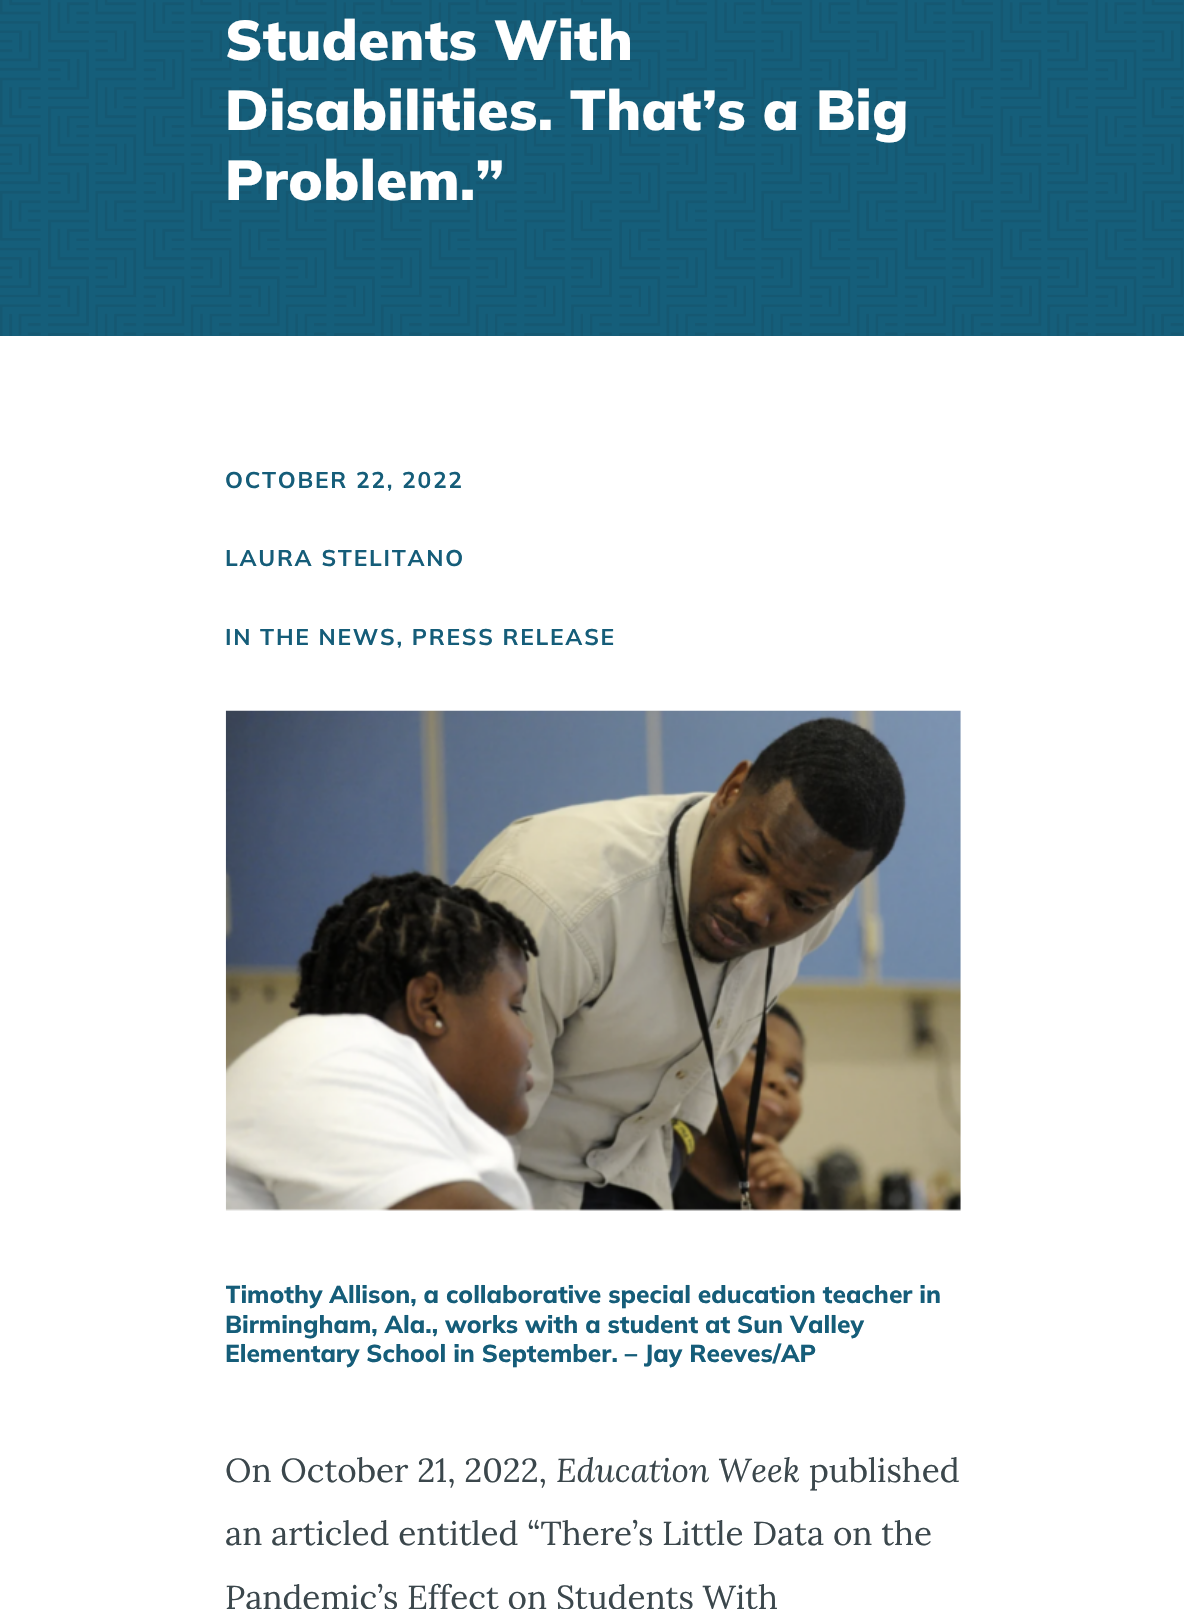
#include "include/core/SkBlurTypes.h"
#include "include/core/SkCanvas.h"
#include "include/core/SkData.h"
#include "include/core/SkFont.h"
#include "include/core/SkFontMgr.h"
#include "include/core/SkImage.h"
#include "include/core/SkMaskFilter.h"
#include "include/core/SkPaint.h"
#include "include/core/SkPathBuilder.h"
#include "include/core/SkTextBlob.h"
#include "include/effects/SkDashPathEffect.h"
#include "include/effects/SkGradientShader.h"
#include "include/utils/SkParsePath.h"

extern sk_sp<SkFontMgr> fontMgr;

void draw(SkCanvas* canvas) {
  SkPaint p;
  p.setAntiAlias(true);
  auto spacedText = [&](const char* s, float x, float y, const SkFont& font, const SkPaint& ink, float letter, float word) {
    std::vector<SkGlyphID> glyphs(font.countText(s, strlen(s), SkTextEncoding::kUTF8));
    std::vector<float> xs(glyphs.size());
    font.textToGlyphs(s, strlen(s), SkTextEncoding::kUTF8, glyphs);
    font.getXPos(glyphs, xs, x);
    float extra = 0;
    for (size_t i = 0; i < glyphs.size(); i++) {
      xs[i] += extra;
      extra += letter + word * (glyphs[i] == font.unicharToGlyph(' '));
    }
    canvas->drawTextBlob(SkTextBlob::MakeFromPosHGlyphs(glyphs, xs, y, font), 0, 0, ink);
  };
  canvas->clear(SK_ColorWHITE);
  canvas->drawImageRect(SkImages::DeferredFromEncodedData(SkData::MakeFromFileName("images/1.png")), SkRect::MakeLTRB(0, 0, 1184, 336), SkSamplingOptions());
  canvas->drawImageRect(SkImages::DeferredFromEncodedData(SkData::MakeFromFileName("images/2.png")), SkRect::MakeLTRB(225, 710, 961, 1211), SkSamplingOptions());
  SkFont font1(fontMgr->matchFamilyStyle("Mulish", SkFontStyle(900, SkFontStyle::kNormal_Width, SkFontStyle::kUpright_Slant)), 56);
  font1.setSubpixel(true);
  p.setColor(SK_ColorWHITE);
  spacedText("Students With", 225, 60, font1, p, 0.45f, 0);
  spacedText("Disabilities. That’s a Big", 225, 130, font1, p, 0.45f, 0);
  spacedText("Problem.”", 225, 200, font1, p, 0.45f, 0);
  SkFont font2(fontMgr->matchFamilyStyle("Mulish", SkFontStyle::Bold()), 22.75f);
  font2.setSubpixel(true);
  p.setColor(SkColorSetRGB(21, 93, 121));
  spacedText("OCTOBER 22, 2022", 225, 488, font2, p, 1.75f, 0);
  spacedText("LAURA STELITANO", 225, 566, font2, p, 1.75f, 0);
  spacedText("IN THE NEWS, PRESS RELEASE", 225, 645, font2, p, 1.75f, 0);
  canvas->save();
  canvas->clipRect(SkRect::MakeLTRB(226, 711, 961, 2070));
  SkFont font3(fontMgr->matchFamilyStyle("Mulish", SkFontStyle(800, SkFontStyle::kNormal_Width, SkFontStyle::kUpright_Slant)), 24.5f);
  font3.setSubpixel(true);
  canvas->drawString("Timothy Allison, a collaborative special education teacher in", 225, 1303, font3, p);
  canvas->restore();
  canvas->drawString("Birmingham, Ala., works with a student at Sun Valley", 225, 1333, font3, p);
  canvas->drawString("Elementary School in September. – Jay Reeves/AP", 225, 1362, font3, p);
  SkFont font4(fontMgr->matchFamilyStyle("Lora", SkFontStyle::Normal()), 33.25f);
  font4.setSubpixel(true);
  p.setColor(SkColorSetRGB(59, 71, 76));
  canvas->drawString("On October 21, 2022,", 225, 1482, font4, p);
  SkFont font5(fontMgr->matchFamilyStyle("Lora", SkFontStyle::Italic()), 33.25f);
  font5.setSubpixel(true);
  canvas->drawString("Education Week", 556, 1482, font5, p);
  canvas->drawString("published", 809, 1482, font4, p);
  canvas->drawString("an articled entitled “There’s Little Data on the", 225, 1545, font4, p);
  canvas->drawString("Pandemic’s Effect on Students With", 225, 1609, font4, p);
}
